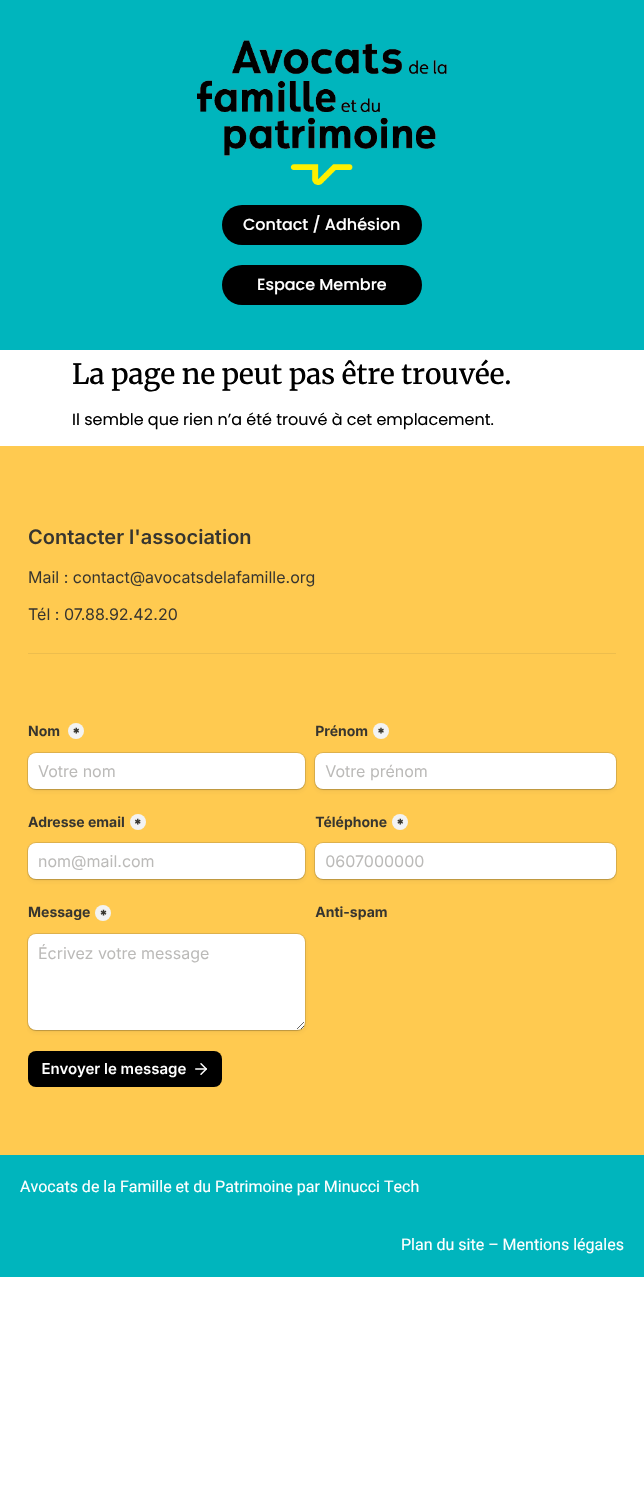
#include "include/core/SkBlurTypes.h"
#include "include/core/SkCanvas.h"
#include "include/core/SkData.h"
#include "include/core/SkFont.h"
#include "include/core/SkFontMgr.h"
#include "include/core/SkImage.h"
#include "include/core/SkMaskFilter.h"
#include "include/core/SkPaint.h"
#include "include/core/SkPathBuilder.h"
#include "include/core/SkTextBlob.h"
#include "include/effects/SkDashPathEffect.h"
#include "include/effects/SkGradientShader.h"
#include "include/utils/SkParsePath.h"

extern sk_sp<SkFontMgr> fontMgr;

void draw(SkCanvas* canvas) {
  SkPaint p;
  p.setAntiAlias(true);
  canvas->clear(SK_ColorWHITE);
  p.setColor(SkColorSetRGB(0, 181, 189));
  canvas->drawRect(SkRect::MakeLTRB(0, 0, 644, 350), p);
  canvas->drawImageRect(SkImages::DeferredFromEncodedData(SkData::MakeFromFileName("images/1.png")), SkRect::MakeLTRB(197, 40, 447, 185), SkSamplingOptions());
  p.setColor(SK_ColorBLACK);
  canvas->drawRoundRect(SkRect::MakeLTRB(222, 205, 422, 245), 20, 20, p);
  canvas->drawRoundRect(SkRect::MakeLTRB(222, 265, 422, 305), 20, 20, p);
  p.setColor(SkColorSetRGB(255, 202, 80));
  canvas->drawRect(SkRect::MakeLTRB(0, 446, 644, 1155), p);
  canvas->drawImageRect(SkImages::DeferredFromEncodedData(SkData::MakeFromFileName("images/2.png")), SkRect::MakeLTRB(27, 528, 617, 1087), SkSamplingOptions());
  p.setColor(SkColorSetRGB(0, 181, 189));
  canvas->drawRect(SkRect::MakeLTRB(0, 1155, 644, 1277), p);
  SkFont font1(fontMgr->matchFamilyStyle("Poppins", SkFontStyle(500, SkFontStyle::kNormal_Width, SkFontStyle::kUpright_Slant)), 16);
  font1.setSubpixel(true);
  p.setColor(SK_ColorWHITE);
  canvas->drawString("Contact / Adhésion", 243, 230, font1, p);
  canvas->drawString("Espace Membre", 257, 290, font1, p);
  SkFont font2(fontMgr->matchFamilyStyle("Merriweather", SkFontStyle(500, SkFontStyle::kNormal_Width, SkFontStyle::kUpright_Slant)), 28);
  font2.setSubpixel(true);
  p.setColor(SK_ColorBLACK);
  canvas->drawString("La page ne peut pas être trouvée.", 72, 384, font2, p);
  SkFont font3(fontMgr->matchFamilyStyle("Poppins", SkFontStyle::Normal()), 16);
  font3.setSubpixel(true);
  canvas->drawString("Il semble que rien n’a été trouvé à cet emplacement.", 72, 425, font3, p);
  SkFont font4(fontMgr->matchFamilyStyle("Roboto", SkFontStyle::Normal()), 16);
  font4.setSubpixel(true);
  p.setColor(SK_ColorWHITE);
  canvas->drawString("Avocats de la Famille et du Patrimoine par Minucci Tech", 20, 1192, font4, p);
  canvas->drawString("Plan du site – Mentions légales", 401, 1250, font4, p);
}
